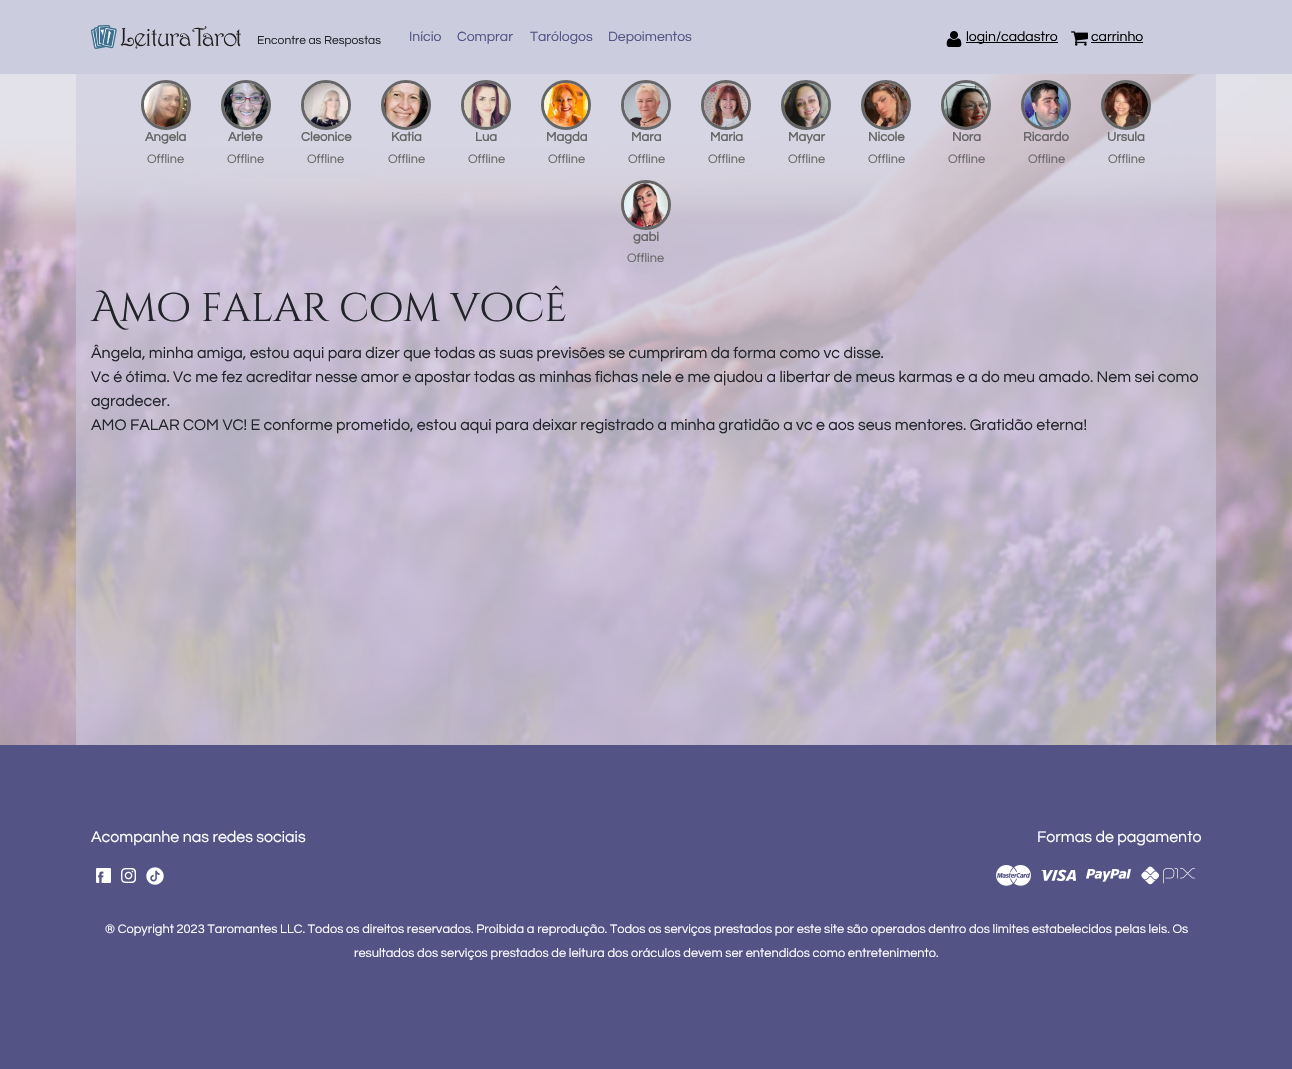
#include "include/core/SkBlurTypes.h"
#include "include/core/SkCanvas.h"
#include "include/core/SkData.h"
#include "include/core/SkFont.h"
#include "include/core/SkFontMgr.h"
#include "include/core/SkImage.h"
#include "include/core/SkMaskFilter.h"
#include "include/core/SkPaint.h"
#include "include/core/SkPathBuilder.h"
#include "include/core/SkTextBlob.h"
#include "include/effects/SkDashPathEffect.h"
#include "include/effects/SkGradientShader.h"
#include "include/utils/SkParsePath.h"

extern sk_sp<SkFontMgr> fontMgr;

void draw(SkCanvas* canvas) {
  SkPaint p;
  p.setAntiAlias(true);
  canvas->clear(SK_ColorWHITE);
  canvas->drawImageRect(SkImages::DeferredFromEncodedData(SkData::MakeFromFileName("images/1.png")), SkRect::MakeLTRB(0, 74, 1292, 745), SkSamplingOptions());
  p.setColor(SkColorSetRGB(204, 204, 223));
  canvas->drawRect(SkRect::MakeLTRB(0, 0, 1292, 74), p);
  canvas->drawImageRect(SkImages::DeferredFromEncodedData(SkData::MakeFromFileName("images/2.png")), SkRect::MakeLTRB(91, 25, 241, 49), SkSamplingOptions());
  canvas->drawImageRect(SkImages::DeferredFromEncodedData(SkData::MakeFromFileName("images/3.png")), SkRect::MakeLTRB(946, 31, 962, 47), SkSamplingOptions());
  p.setColor(SK_ColorBLACK);
  canvas->drawRect(SkRect::MakeLTRB(966, 42, 1058, 43), p);
  canvas->drawImageRect(SkImages::DeferredFromEncodedData(SkData::MakeFromFileName("images/4.png")), SkRect::MakeLTRB(1071, 31, 1088, 46), SkSamplingOptions());
  canvas->drawRect(SkRect::MakeLTRB(1091, 42, 1143, 43), p);
  p.setColor(SkColorSetARGB(143, 204, 204, 223));
  canvas->drawRect(SkRect::MakeLTRB(76, 74, 1216, 745), p);
  p.setStyle(SkPaint::kStroke_Style);
  p.setStrokeWidth(3);
  p.setColor(SkColorSetRGB(102, 102, 102));
  canvas->drawCircle(166, 105, 23.5f, p);
  canvas->drawImageRect(SkImages::DeferredFromEncodedData(SkData::MakeFromFileName("images/5.png")), SkRect::MakeLTRB(144, 83, 188, 127), SkSamplingOptions());
  canvas->drawCircle(246, 105, 23.5f, p);
  canvas->drawImageRect(SkImages::DeferredFromEncodedData(SkData::MakeFromFileName("images/6.png")), SkRect::MakeLTRB(224, 83, 268, 127), SkSamplingOptions());
  canvas->drawCircle(326, 105, 23.5f, p);
  canvas->drawImageRect(SkImages::DeferredFromEncodedData(SkData::MakeFromFileName("images/7.png")), SkRect::MakeLTRB(304, 83, 348, 127), SkSamplingOptions());
  canvas->drawCircle(406, 105, 23.5f, p);
  canvas->drawImageRect(SkImages::DeferredFromEncodedData(SkData::MakeFromFileName("images/8.png")), SkRect::MakeLTRB(384, 83, 428, 127), SkSamplingOptions());
  canvas->drawCircle(486, 105, 23.5f, p);
  canvas->drawImageRect(SkImages::DeferredFromEncodedData(SkData::MakeFromFileName("images/9.png")), SkRect::MakeLTRB(464, 83, 508, 127), SkSamplingOptions());
  canvas->drawCircle(566, 105, 23.5f, p);
  canvas->drawImageRect(SkImages::DeferredFromEncodedData(SkData::MakeFromFileName("images/10.png")), SkRect::MakeLTRB(544, 83, 588, 127), SkSamplingOptions());
  canvas->drawCircle(646, 105, 23.5f, p);
  canvas->drawImageRect(SkImages::DeferredFromEncodedData(SkData::MakeFromFileName("images/11.png")), SkRect::MakeLTRB(624, 83, 668, 127), SkSamplingOptions());
  canvas->drawCircle(726, 105, 23.5f, p);
  canvas->drawImageRect(SkImages::DeferredFromEncodedData(SkData::MakeFromFileName("images/12.png")), SkRect::MakeLTRB(704, 83, 748, 127), SkSamplingOptions());
  canvas->drawCircle(806, 105, 23.5f, p);
  canvas->drawImageRect(SkImages::DeferredFromEncodedData(SkData::MakeFromFileName("images/13.png")), SkRect::MakeLTRB(784, 83, 828, 127), SkSamplingOptions());
  canvas->drawCircle(886, 105, 23.5f, p);
  canvas->drawImageRect(SkImages::DeferredFromEncodedData(SkData::MakeFromFileName("images/14.png")), SkRect::MakeLTRB(864, 83, 908, 127), SkSamplingOptions());
  canvas->drawCircle(966, 105, 23.5f, p);
  canvas->drawImageRect(SkImages::DeferredFromEncodedData(SkData::MakeFromFileName("images/15.png")), SkRect::MakeLTRB(944, 83, 988, 127), SkSamplingOptions());
  canvas->drawCircle(1046, 105, 23.5f, p);
  canvas->drawImageRect(SkImages::DeferredFromEncodedData(SkData::MakeFromFileName("images/16.png")), SkRect::MakeLTRB(1024, 83, 1068, 127), SkSamplingOptions());
  canvas->drawCircle(1126, 105, 23.5f, p);
  canvas->drawImageRect(SkImages::DeferredFromEncodedData(SkData::MakeFromFileName("images/17.png")), SkRect::MakeLTRB(1104, 83, 1148, 127), SkSamplingOptions());
  canvas->drawCircle(646, 205, 23.5f, p);
  canvas->drawImageRect(SkImages::DeferredFromEncodedData(SkData::MakeFromFileName("images/18.png")), SkRect::MakeLTRB(624, 183, 668, 227), SkSamplingOptions());
  p.setStyle(SkPaint::kFill_Style);
  p.setColor(SkColorSetRGB(83, 83, 134));
  canvas->drawRect(SkRect::MakeLTRB(0, 745, 1292, 1069), p);
  canvas->drawImageRect(SkImages::DeferredFromEncodedData(SkData::MakeFromFileName("images/19.png")), SkRect::MakeLTRB(96, 868, 111, 883), SkSamplingOptions());
  canvas->drawImageRect(SkImages::DeferredFromEncodedData(SkData::MakeFromFileName("images/20.png")), SkRect::MakeLTRB(121, 868, 136, 883), SkSamplingOptions());
  canvas->drawImageRect(SkImages::DeferredFromEncodedData(SkData::MakeFromFileName("images/21.png")), SkRect::MakeLTRB(146, 867, 164, 885), SkSamplingOptions());
  canvas->drawImageRect(SkImages::DeferredFromEncodedData(SkData::MakeFromFileName("images/22.png")), SkRect::MakeLTRB(996, 865, 1031, 886), SkSamplingOptions());
  canvas->drawImageRect(SkImages::DeferredFromEncodedData(SkData::MakeFromFileName("images/23.png")), SkRect::MakeLTRB(1041, 869, 1076, 882), SkSamplingOptions());
  canvas->drawImageRect(SkImages::DeferredFromEncodedData(SkData::MakeFromFileName("images/24.png")), SkRect::MakeLTRB(1086, 869, 1131, 882), SkSamplingOptions());
  canvas->drawImageRect(SkImages::DeferredFromEncodedData(SkData::MakeFromFileName("images/25.png")), SkRect::MakeLTRB(1141, 866, 1195, 885), SkSamplingOptions());
  SkFont font1(fontMgr->matchFamilyStyle("Questrial", SkFontStyle::Normal()), 12);
  font1.setSubpixel(true);
  p.setColor(SkColorSetRGB(33, 37, 41));
  canvas->drawString("Encontre as Respostas", 257, 44, font1, p);
  SkFont font2(fontMgr->matchFamilyStyle("Questrial", SkFontStyle::Normal()), 14);
  font2.setSubpixel(true);
  p.setColor(SkColorSetRGB(83, 83, 134));
  canvas->drawString("Início", 409, 41, font2, p);
  canvas->drawString("Comprar", 457, 41, font2, p);
  canvas->drawString("Tarólogos", 530, 41, font2, p);
  canvas->drawString("Depoimentos", 608, 41, font2, p);
  p.setColor(SK_ColorBLACK);
  canvas->drawString("login/cadastro", 966, 41, font2, p);
  canvas->drawString("carrinho", 1091, 41, font2, p);
  SkFont font3(fontMgr->matchFamilyStyle("Questrial", SkFontStyle::Bold()), 13);
  font3.setSubpixel(true);
  p.setColor(SkColorSetRGB(102, 102, 102));
  canvas->drawString("Angela", 145, 141, font3, p);
  SkFont font4(fontMgr->matchFamilyStyle("Questrial", SkFontStyle::Normal()), 12.8f);
  font4.setSubpixel(true);
  canvas->drawString("Offline", 147, 163, font4, p);
  canvas->drawString("Arlete", 228, 141, font3, p);
  canvas->drawString("Offline", 227, 163, font4, p);
  canvas->drawString("Cleonice", 301, 141, font3, p);
  canvas->drawString("Offline", 307, 163, font4, p);
  canvas->drawString("Katia", 391, 141, font3, p);
  canvas->drawString("Offline", 388, 163, font4, p);
  canvas->drawString("Lua", 475, 141, font3, p);
  canvas->drawString("Offline", 468, 163, font4, p);
  canvas->drawString("Magda", 546, 141, font3, p);
  canvas->drawString("Offline", 548, 163, font4, p);
  canvas->drawString("Mara", 631, 141, font3, p);
  canvas->drawString("Offline", 628, 163, font4, p);
  canvas->drawString("Maria", 710, 141, font3, p);
  canvas->drawString("Offline", 708, 163, font4, p);
  canvas->drawString("Mayar", 788, 141, font3, p);
  canvas->drawString("Offline", 788, 163, font4, p);
  canvas->drawString("Nicole", 868, 141, font3, p);
  canvas->drawString("Offline", 868, 163, font4, p);
  canvas->drawString("Nora", 952, 141, font3, p);
  canvas->drawString("Offline", 948, 163, font4, p);
  canvas->drawString("Ricardo", 1023, 141, font3, p);
  canvas->drawString("Offline", 1028, 163, font4, p);
  canvas->drawString("Ursula", 1107, 141, font3, p);
  canvas->drawString("Offline", 1108, 163, font4, p);
  canvas->drawString("gabi", 633, 241, font3, p);
  canvas->drawString("Offline", 627, 262, font4, p);
  SkFont font5(fontMgr->matchFamilyStyle("Cinzel Decorative", SkFontStyle::Normal()), 40);
  font5.setSubpixel(true);
  p.setColor(SkColorSetRGB(33, 37, 41));
  canvas->drawString("Amo falar com você", 91, 321, font5, p);
  SkFont font6(fontMgr->matchFamilyStyle("Questrial", SkFontStyle::Normal()), 16);
  font6.setSubpixel(true);
  canvas->drawString("Ângela, minha amiga, estou aqui para dizer que todas as suas previsões se cumpriram da forma como vc disse.", 91, 358, font6, p);
  canvas->drawString("Vc é ótima. Vc me fez acreditar nesse amor e apostar todas as minhas fichas nele e me ajudou a libertar de meus karmas e a do meu amado. Nem sei como", 91, 382, font6, p);
  canvas->drawString("agradecer.", 91, 406, font6, p);
  canvas->drawString("AMO FALAR COM VC! E conforme prometido, estou aqui para deixar registrado a minha gratidão a vc e aos seus mentores. Gratidão eterna!", 91, 430, font6, p);
  p.setColor(SK_ColorWHITE);
  canvas->drawString("Acompanhe nas redes sociais", 91, 842, font6, p);
  canvas->drawString("Formas de pagamento", 1037, 842, font6, p);
  canvas->drawString("® Copyright 2023 Taromantes LLC. Todos os direitos reservados. Proibida a reprodução. Todos os serviços prestados por este site são operados dentro dos limites estabelecidos pelas leis. Os", 105, 933, font4, p);
  canvas->drawString("resultados dos serviços prestados de leitura dos oráculos devem ser entendidos como entretenimento.", 354, 957, font4, p);
}
